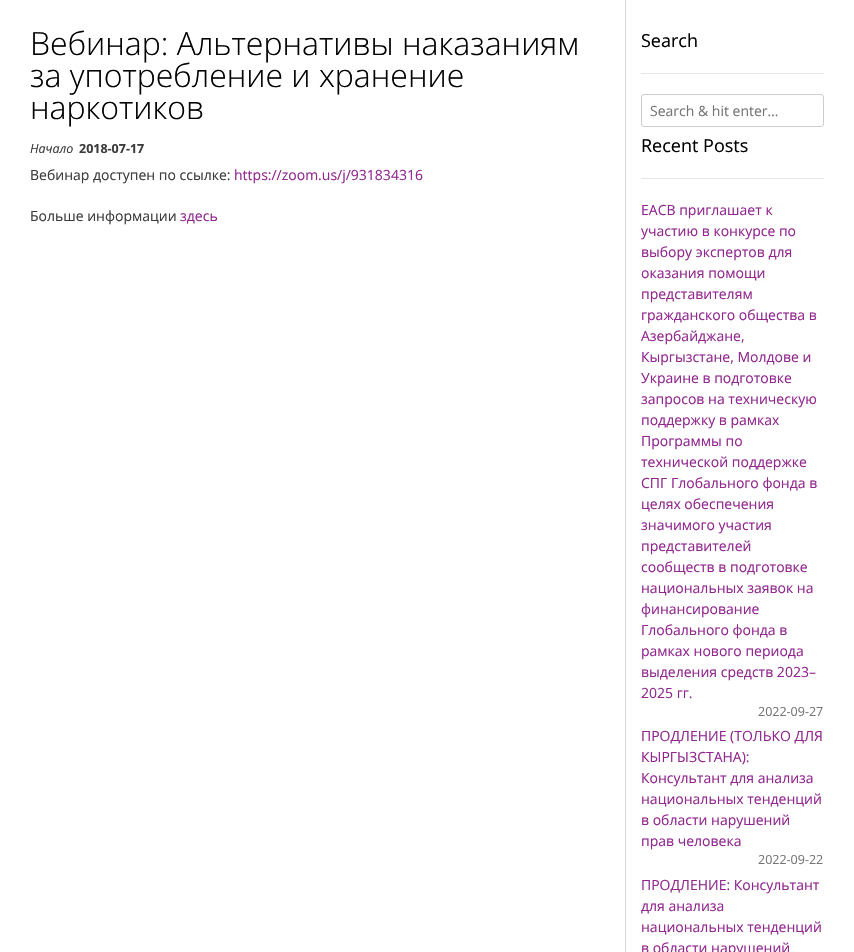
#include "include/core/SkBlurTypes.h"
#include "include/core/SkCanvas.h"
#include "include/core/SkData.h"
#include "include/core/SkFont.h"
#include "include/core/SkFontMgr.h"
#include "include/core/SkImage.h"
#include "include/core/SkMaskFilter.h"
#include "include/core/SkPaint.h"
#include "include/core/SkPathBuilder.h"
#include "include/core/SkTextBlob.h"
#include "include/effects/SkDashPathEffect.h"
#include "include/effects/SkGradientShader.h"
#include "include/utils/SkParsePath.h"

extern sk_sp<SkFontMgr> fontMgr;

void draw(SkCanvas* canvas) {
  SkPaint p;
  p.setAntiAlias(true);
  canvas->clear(SK_ColorWHITE);
  p.setColor(SkColorSetRGB(215, 215, 215));
  canvas->drawRect(SkRect::MakeLTRB(625, 0, 626, 952), p);
  p.setColor(SkColorSetRGB(230, 230, 230));
  canvas->drawRect(SkRect::MakeLTRB(641, 73, 824, 74), p);
  p.setStyle(SkPaint::kStroke_Style);
  p.setStrokeWidth(1);
  p.setColor(SkColorSetRGB(204, 204, 204));
  canvas->drawRoundRect(SkRect::MakeLTRB(641.5f, 94.5f, 823.5f, 126.5f), 2.5f, 2.5f, p);
  p.setStyle(SkPaint::kFill_Style);
  p.setColor(SkColorSetRGB(230, 230, 230));
  canvas->drawRect(SkRect::MakeLTRB(641, 178, 824, 179), p);
  SkFont font1(fontMgr->matchFamilyStyle("Open Sans", SkFontStyle(300, SkFontStyle::kNormal_Width, SkFontStyle::kUpright_Slant)), 32);
  font1.setSubpixel(true);
  p.setColor(SK_ColorBLACK);
  canvas->drawString("Вебинар: Альтернативы наказаниям", 30, 55, font1, p);
  canvas->drawString("за употребление и хранение", 30, 87, font1, p);
  canvas->drawString("наркотиков", 30, 119, font1, p);
  SkFont font2(fontMgr->matchFamilyStyle("Open Sans", SkFontStyle::Italic()), 12.5f);
  font2.setSubpixel(true);
  p.setColor(SkColorSetRGB(60, 60, 60));
  canvas->drawString("Начало", 30, 153, font2, p);
  SkFont font3(fontMgr->matchFamilyStyle("Open Sans", SkFontStyle::Bold()), 12.5f);
  font3.setSubpixel(true);
  canvas->drawString("2018-07-17", 79, 153, font3, p);
  SkFont font4(fontMgr->matchFamilyStyle("Open Sans", SkFontStyle::Normal()), 14);
  font4.setSubpixel(true);
  canvas->drawString("Вебинар доступен по ссылке:", 30, 180, font4, p);
  p.setColor(SkColorSetRGB(145, 38, 143));
  canvas->drawString("https://zoom.us/j/931834316", 234, 180, font4, p);
  p.setColor(SkColorSetRGB(60, 60, 60));
  canvas->drawString("Больше информации", 30, 221, font4, p);
  p.setColor(SkColorSetRGB(145, 38, 143));
  canvas->drawString("здесь", 180, 221, font4, p);
  SkFont font5(fontMgr->matchFamilyStyle("Open Sans", SkFontStyle::Normal()), 18);
  font5.setSubpixel(true);
  p.setColor(SK_ColorBLACK);
  canvas->drawString("Search", 641, 47, font5, p);
  p.setColor(SkColorSetRGB(117, 117, 117));
  canvas->drawString("Search & hit enter…", 650, 116, font4, p);
  p.setColor(SK_ColorBLACK);
  canvas->drawString("Recent Posts", 641, 152, font5, p);
  p.setColor(SkColorSetRGB(145, 38, 143));
  canvas->drawString("ЕАСВ приглашает к", 641, 215, font4, p);
  canvas->drawString("участию в конкурсе по", 641, 236, font4, p);
  canvas->drawString("выбору экспертов для", 641, 257, font4, p);
  canvas->drawString("оказания помощи", 641, 278, font4, p);
  canvas->drawString("представителям", 641, 299, font4, p);
  canvas->drawString("гражданского общества в", 641, 320, font4, p);
  canvas->drawString("Азербайджане,", 641, 341, font4, p);
  canvas->drawString("Кыргызстане, Молдове и", 641, 362, font4, p);
  canvas->drawString("Украине в подготовке", 641, 383, font4, p);
  canvas->drawString("запросов на техническую", 641, 404, font4, p);
  canvas->drawString("поддержку в рамках", 641, 425, font4, p);
  canvas->drawString("Программы по", 641, 446, font4, p);
  canvas->drawString("технической поддержке", 641, 467, font4, p);
  canvas->drawString("СПГ Глобального фонда в", 641, 488, font4, p);
  canvas->drawString("целях обеспечения", 641, 509, font4, p);
  canvas->drawString("значимого участия", 641, 530, font4, p);
  canvas->drawString("представителей", 641, 551, font4, p);
  canvas->drawString("сообществ в подготовке", 641, 572, font4, p);
  canvas->drawString("национальных заявок на", 641, 593, font4, p);
  canvas->drawString("финансирование", 641, 614, font4, p);
  canvas->drawString("Глобального фонда в", 641, 635, font4, p);
  canvas->drawString("рамках нового периода", 641, 656, font4, p);
  canvas->drawString("выделения средств 2023–", 641, 677, font4, p);
  canvas->drawString("2025 гг.", 641, 698, font4, p);
  SkFont font6(fontMgr->matchFamilyStyle("Open Sans", SkFontStyle::Normal()), 12.5f);
  font6.setSubpixel(true);
  p.setColor(SkColorSetRGB(117, 117, 117));
  canvas->drawString("2022-09-27", 758, 716, font6, p);
  p.setColor(SkColorSetRGB(145, 38, 143));
  canvas->drawString("ПРОДЛЕНИЕ (ТОЛЬКО ДЛЯ", 641, 741, font4, p);
  canvas->drawString("КЫРГЫЗСТАНА):", 641, 762, font4, p);
  canvas->drawString("Консультант для анализа", 641, 783, font4, p);
  canvas->drawString("национальных тенденций", 641, 804, font4, p);
  canvas->drawString("в области нарушений", 641, 825, font4, p);
  canvas->drawString("прав человека", 641, 846, font4, p);
  p.setColor(SkColorSetRGB(117, 117, 117));
  canvas->drawString("2022-09-22", 758, 864, font6, p);
  p.setColor(SkColorSetRGB(145, 38, 143));
  canvas->drawString("ПРОДЛЕНИЕ: Консультант", 641, 890, font4, p);
  canvas->drawString("для анализа", 641, 911, font4, p);
  canvas->drawString("национальных тенденций", 641, 932, font4, p);
  canvas->drawString("в области нарушений", 641, 953, font4, p);
}
